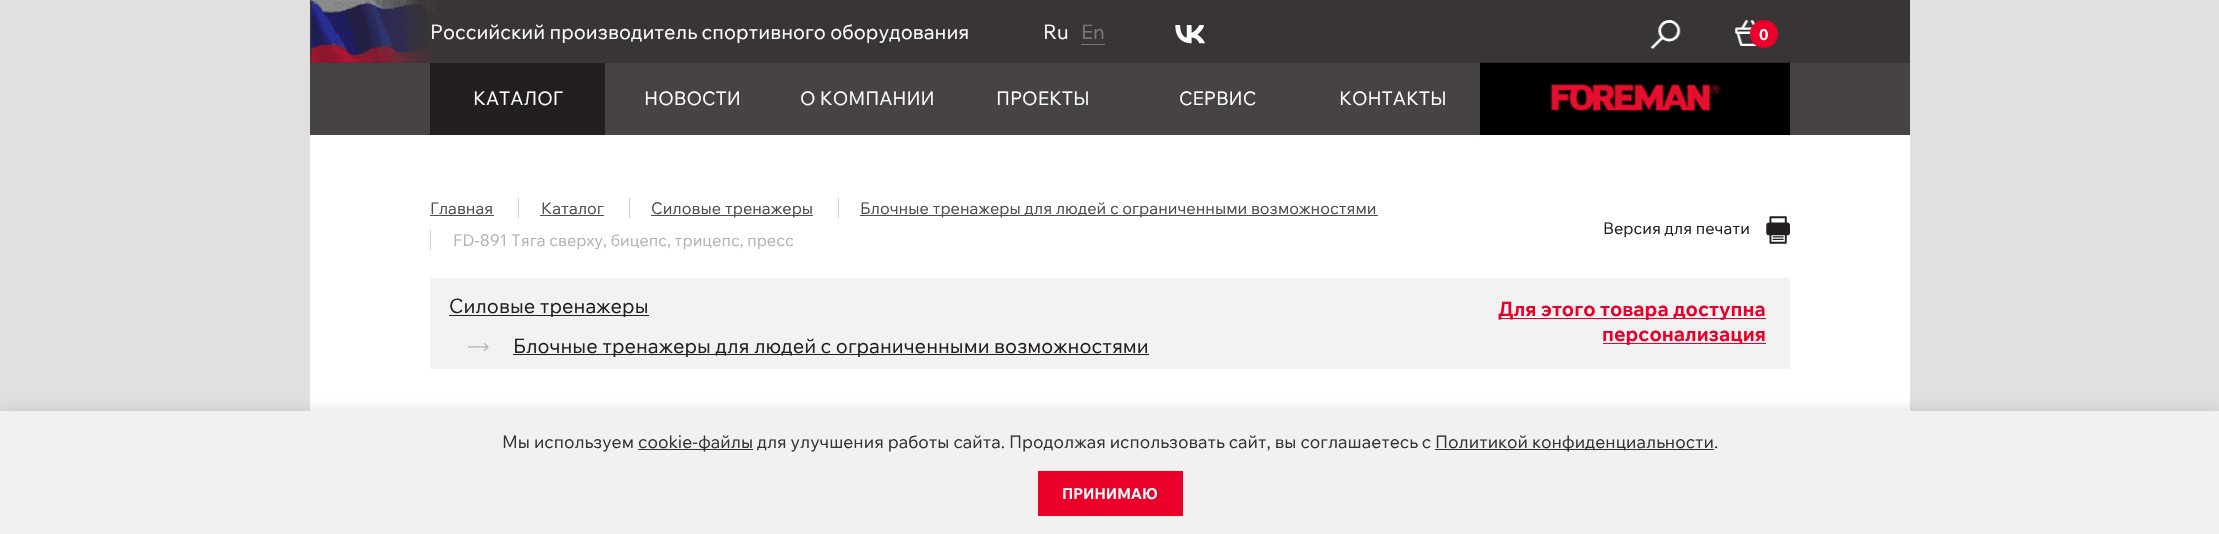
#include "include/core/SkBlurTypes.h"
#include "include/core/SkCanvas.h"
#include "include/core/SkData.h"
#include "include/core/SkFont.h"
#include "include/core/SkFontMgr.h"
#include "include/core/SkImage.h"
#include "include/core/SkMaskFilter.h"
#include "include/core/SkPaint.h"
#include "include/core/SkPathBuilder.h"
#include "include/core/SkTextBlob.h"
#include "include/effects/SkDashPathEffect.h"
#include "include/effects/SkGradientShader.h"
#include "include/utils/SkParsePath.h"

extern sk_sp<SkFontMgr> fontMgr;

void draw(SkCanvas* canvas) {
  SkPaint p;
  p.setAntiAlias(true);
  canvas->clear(SkColorSetRGB(224, 224, 224));
  p.setColor(SK_ColorWHITE);
  canvas->drawRect(SkRect::MakeLTRB(310, 0, 1910, 411), p);
  p.setColor(SkColorSetRGB(71, 66, 67));
  canvas->drawRect(SkRect::MakeLTRB(310, 63, 1910, 135), p);
  canvas->drawImageRect(SkImages::DeferredFromEncodedData(SkData::MakeFromFileName("images/5.png")), SkRect::MakeLTRB(1480, 62, 1790, 135), SkSamplingOptions());
  p.setColor(SkColorSetARGB(230, 35, 31, 32));
  canvas->drawRect(SkRect::MakeLTRB(310, 0, 1910, 63), p);
  p.setColor(SkColorSetRGB(120, 120, 126));
  canvas->drawRect(SkRect::MakeLTRB(1081, 44, 1105, 45), p);
  canvas->drawImageRect(SkImages::DeferredFromEncodedData(SkData::MakeFromFileName("images/2.png")), SkRect::MakeLTRB(1175, 25, 1205, 44), SkSamplingOptions());
  canvas->drawImageRect(SkImages::DeferredFromEncodedData(SkData::MakeFromFileName("images/3.png")), SkRect::MakeLTRB(1651, 20, 1681, 49), SkSamplingOptions());
  canvas->drawImageRect(SkImages::DeferredFromEncodedData(SkData::MakeFromFileName("images/4.png")), SkRect::MakeLTRB(1735, 20, 1757, 46), SkSamplingOptions());
  p.setColor(SkColorSetRGB(234, 0, 41));
  canvas->drawCircle(1764, 34, 14, p);
  p.setColor(SkColorSetRGB(35, 31, 32));
  canvas->drawRect(SkRect::MakeLTRB(430, 63, 605, 135), p);
  p.setColor(SkColorSetRGB(77, 77, 77));
  canvas->drawRect(SkRect::MakeLTRB(430, 215, 494, 216), p);
  p.setColor(SkColorSetRGB(204, 204, 204));
  canvas->drawRect(SkRect::MakeLTRB(518, 198, 519, 218), p);
  p.setColor(SkColorSetRGB(77, 77, 77));
  canvas->drawRect(SkRect::MakeLTRB(540, 215, 604, 216), p);
  p.setColor(SkColorSetRGB(204, 204, 204));
  canvas->drawRect(SkRect::MakeLTRB(629, 198, 630, 218), p);
  p.setColor(SkColorSetRGB(77, 77, 77));
  canvas->drawRect(SkRect::MakeLTRB(651, 215, 813, 216), p);
  p.setColor(SkColorSetRGB(204, 204, 204));
  canvas->drawRect(SkRect::MakeLTRB(838, 198, 839, 218), p);
  p.setColor(SkColorSetRGB(77, 77, 77));
  canvas->drawRect(SkRect::MakeLTRB(860, 215, 1378, 216), p);
  p.setColor(SkColorSetRGB(204, 204, 204));
  canvas->drawRect(SkRect::MakeLTRB(430, 230, 431, 250), p);
  canvas->drawImageRect(SkImages::DeferredFromEncodedData(SkData::MakeFromFileName("images/6.png")), SkRect::MakeLTRB(1766, 216, 1790, 244), SkSamplingOptions());
  p.setColor(SkColorSetRGB(242, 242, 242));
  canvas->drawRect(SkRect::MakeLTRB(430, 278, 1790, 369), p);
  p.setColor(SkColorSetRGB(35, 31, 32));
  canvas->drawRect(SkRect::MakeLTRB(449, 315, 649, 316), p);
  canvas->drawImageRect(SkImages::DeferredFromEncodedData(SkData::MakeFromFileName("images/7.png")), SkRect::MakeLTRB(468, 343, 489, 351), SkSamplingOptions());
  canvas->drawRect(SkRect::MakeLTRB(513, 354, 1149, 355), p);
  p.setColor(SkColorSetRGB(234, 0, 41));
  canvas->drawRect(SkRect::MakeLTRB(1499, 318, 1766, 319), p);
  canvas->drawRect(SkRect::MakeLTRB(1603, 343, 1766, 344), p);
  p.setColor(SkColorSetARGB(26, 0, 0, 0));
  p.setMaskFilter(SkMaskFilter::MakeBlur(kNormal_SkBlurStyle, 6));
  canvas->drawRect(SkRect::MakeLTRB(0, 409, 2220, 533), p);
  p.setMaskFilter(nullptr);
  p.setColor(SkColorSetRGB(241, 241, 241));
  canvas->drawRect(SkRect::MakeLTRB(0, 411, 2219, 534), p);
  p.setColor(SkColorSetRGB(51, 51, 51));
  canvas->drawRect(SkRect::MakeLTRB(638, 449, 753, 450), p);
  canvas->drawRect(SkRect::MakeLTRB(1435, 449, 1714, 450), p);
  p.setColor(SkColorSetRGB(234, 0, 41));
  canvas->drawRect(SkRect::MakeLTRB(1038, 471, 1183, 516), p);
  SkFont font1(fontMgr->matchFamilyStyle("Wix Madefor Text", SkFontStyle::Normal()), 20);
  font1.setSubpixel(true);
  p.setColor(SK_ColorWHITE);
  canvas->drawString("Российский производитель спортивного оборудования", 430, 39, font1, p);
  canvas->drawImageRect(SkImages::DeferredFromEncodedData(SkData::MakeFromFileName("images/1.png")), SkRect::MakeLTRB(311, 0, 436, 63), SkSamplingOptions());
  canvas->drawString("Ru", 1043, 39, font1, p);
  p.setColor(SkColorSetRGB(120, 120, 126));
  canvas->drawString("En", 1081, 39, font1, p);
  SkFont font2(fontMgr->matchFamilyStyle("Wix Madefor Text", SkFontStyle::Bold()), 15);
  font2.setSubpixel(true);
  p.setColor(SK_ColorWHITE);
  canvas->drawString("0", 1759, 40, font2, p);
  SkFont font3(fontMgr->matchFamilyStyle("Wix Madefor Text", SkFontStyle::Normal()), 18.75f);
  font3.setSubpixel(true);
  canvas->drawString("КАТАЛОГ", 473, 105, font3, p);
  canvas->drawString("НОВОСТИ", 644, 105, font3, p);
  canvas->drawString("О КОМПАНИИ", 800, 105, font3, p);
  canvas->drawString("ПРОЕКТЫ", 996, 105, font3, p);
  canvas->drawString("СЕРВИС", 1179, 105, font3, p);
  canvas->drawString("КОНТАКТЫ", 1339, 105, font3, p);
  SkFont font4(fontMgr->matchFamilyStyle("Wix Madefor Text", SkFontStyle::Normal()), 16.25f);
  font4.setSubpixel(true);
  p.setColor(SkColorSetRGB(77, 77, 77));
  canvas->drawString("Главная", 430, 214, font4, p);
  canvas->drawString("Каталог", 541, 214, font4, p);
  canvas->drawString("Силовые тренажеры", 651, 214, font4, p);
  canvas->drawString("Блочные тренажеры для людей с ограниченными возможностями", 860, 214, font4, p);
  p.setColor(SkColorSetRGB(179, 179, 179));
  canvas->drawString("FD-891 Тяга сверху, бицепс, трицепс, пресс", 453, 246, font4, p);
  p.setColor(SkColorSetRGB(35, 31, 32));
  canvas->drawString("Версия для печати", 1603, 234, font4, p);
  canvas->drawString("Силовые тренажеры", 449, 313, font1, p);
  canvas->drawString("Блочные тренажеры для людей с ограниченными возможностями", 513, 353, font1, p);
  SkFont font5(fontMgr->matchFamilyStyle("Wix Madefor Text", SkFontStyle::Bold()), 20);
  font5.setSubpixel(true);
  p.setColor(SkColorSetRGB(234, 0, 41));
  canvas->drawString("Для этого товара доступна", 1498, 316, font5, p);
  canvas->drawString("персонализация", 1602, 341, font5, p);
  SkFont font6(fontMgr->matchFamilyStyle("Wix Madefor Text", SkFontStyle::Normal()), 17.5f);
  font6.setSubpixel(true);
  p.setColor(SkColorSetRGB(51, 51, 51));
  canvas->drawString("Мы используем", 502, 448, font6, p);
  canvas->drawString("cookie-файлы для улучшения работы сайта. Продолжая использовать сайт, вы соглашаетесь с", 638, 448, font6, p);
  canvas->drawString("Политикой конфиденциальности.", 1435, 448, font6, p);
  p.setColor(SK_ColorWHITE);
  canvas->drawString("ПРИНИМАЮ", 1062, 499, font2, p);
}
